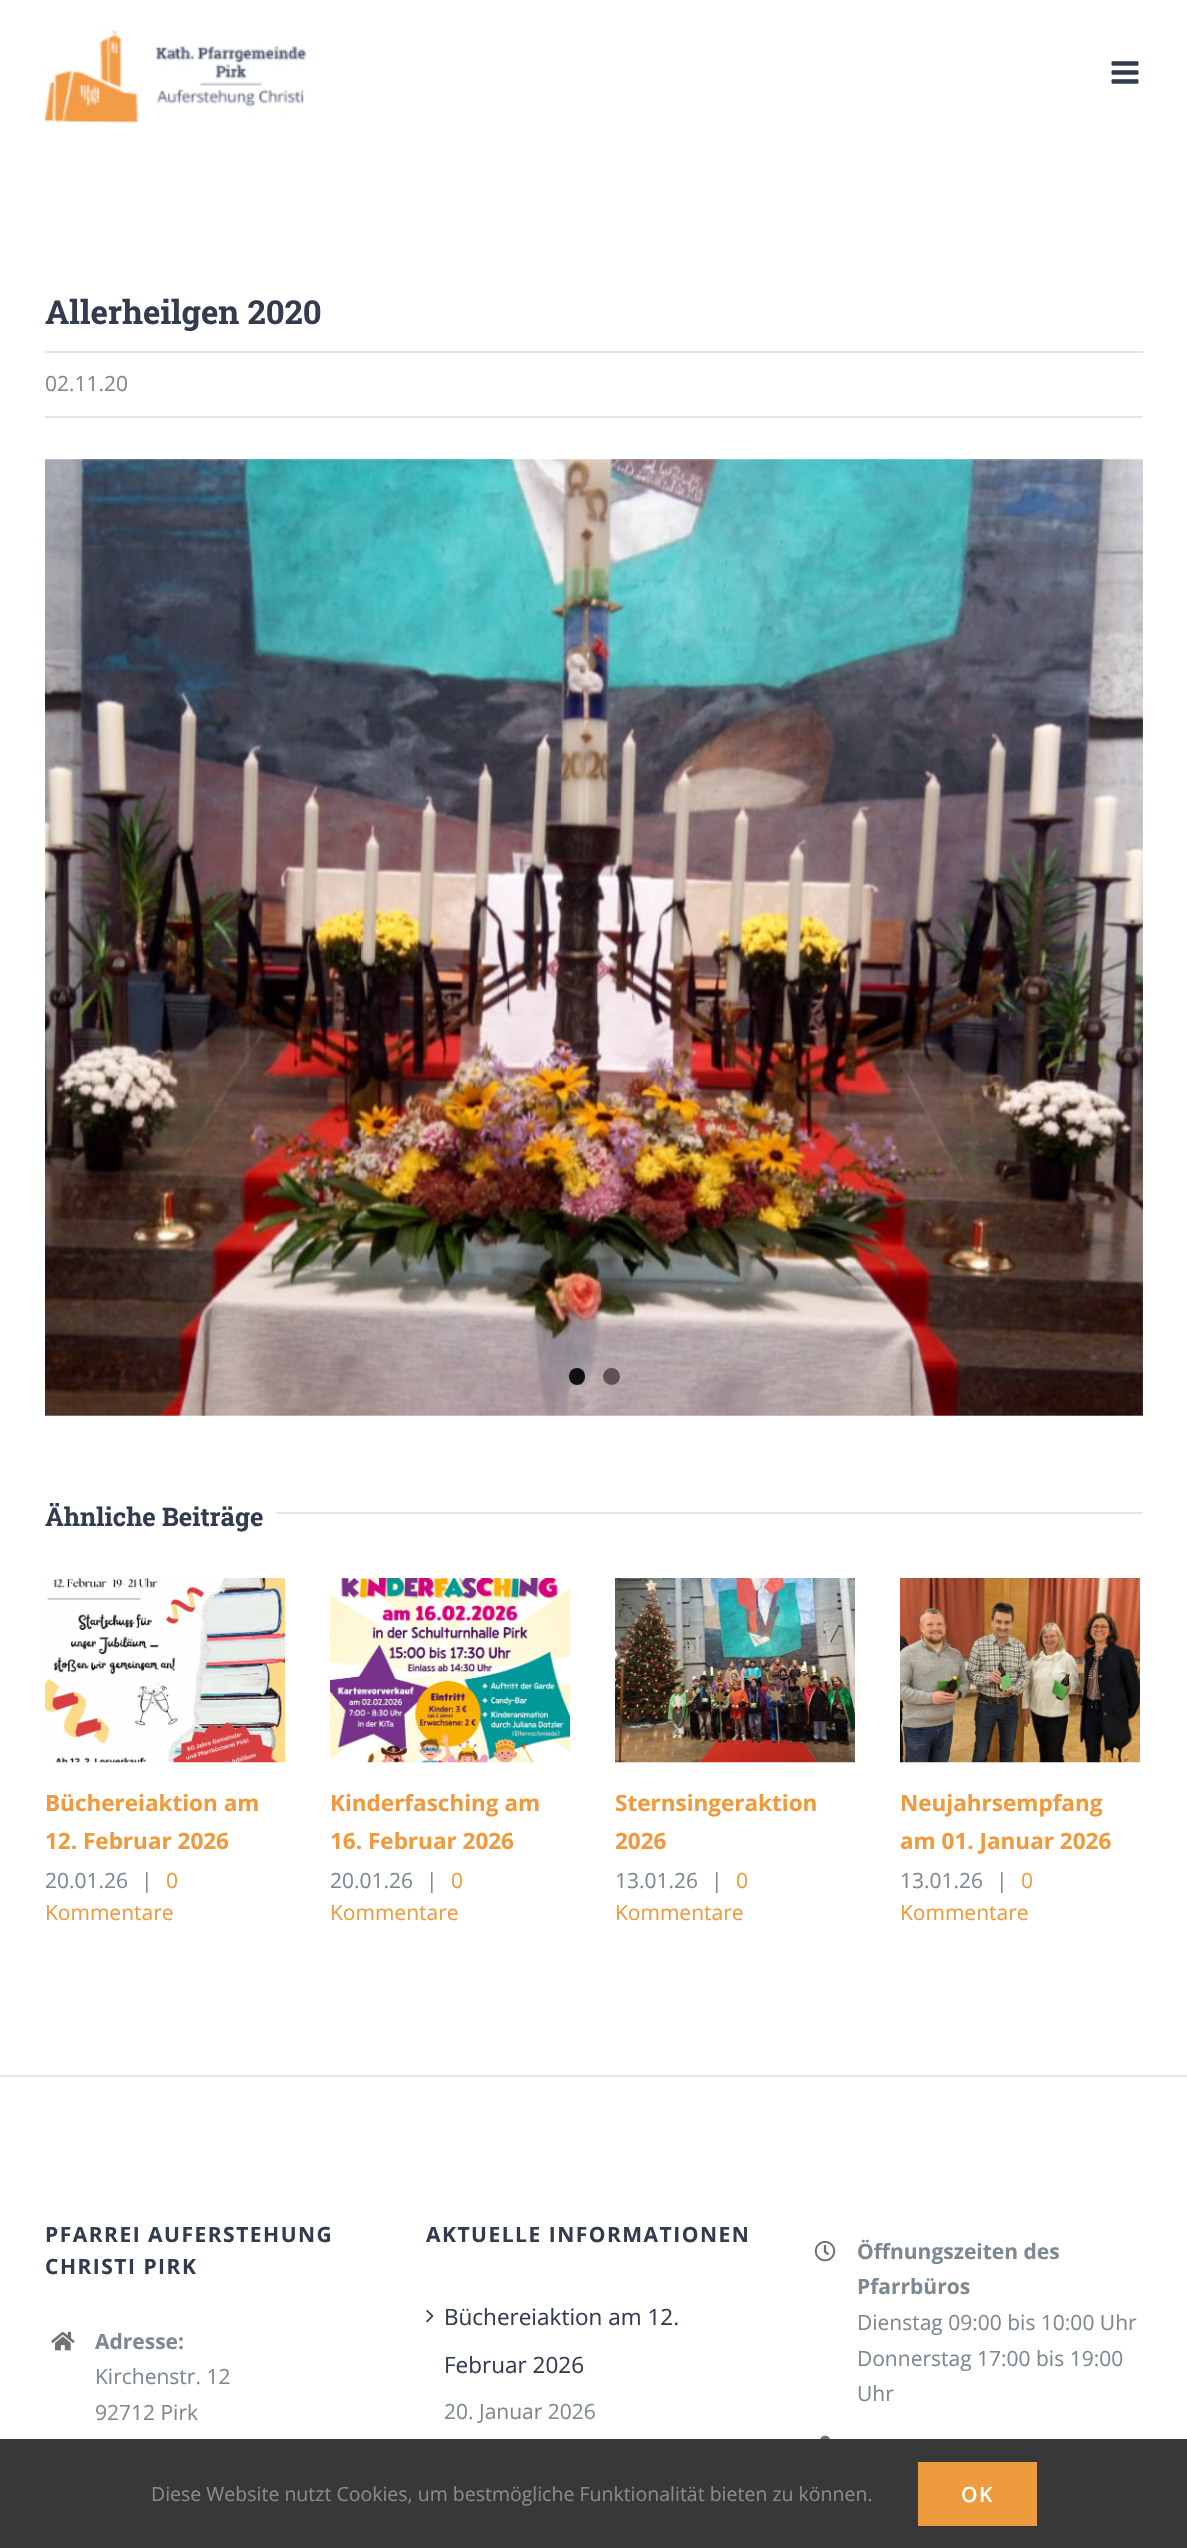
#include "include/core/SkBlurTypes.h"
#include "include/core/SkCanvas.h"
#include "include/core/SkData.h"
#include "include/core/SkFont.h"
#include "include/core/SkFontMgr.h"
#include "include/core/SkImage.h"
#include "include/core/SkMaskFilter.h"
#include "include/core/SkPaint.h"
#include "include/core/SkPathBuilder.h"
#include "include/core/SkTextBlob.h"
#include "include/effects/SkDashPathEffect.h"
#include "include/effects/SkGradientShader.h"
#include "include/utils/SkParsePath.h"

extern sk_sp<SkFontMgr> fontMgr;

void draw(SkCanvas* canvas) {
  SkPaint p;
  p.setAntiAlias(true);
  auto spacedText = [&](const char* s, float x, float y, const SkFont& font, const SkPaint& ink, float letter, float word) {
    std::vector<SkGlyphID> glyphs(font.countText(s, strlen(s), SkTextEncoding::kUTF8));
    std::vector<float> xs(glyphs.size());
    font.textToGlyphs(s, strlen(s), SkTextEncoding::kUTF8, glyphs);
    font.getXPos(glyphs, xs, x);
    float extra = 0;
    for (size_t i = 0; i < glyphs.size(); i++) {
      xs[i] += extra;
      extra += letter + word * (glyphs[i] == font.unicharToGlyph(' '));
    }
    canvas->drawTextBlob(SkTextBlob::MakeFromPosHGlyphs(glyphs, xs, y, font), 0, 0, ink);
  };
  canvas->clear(SK_ColorWHITE);
  canvas->drawImageRect(SkImages::DeferredFromEncodedData(SkData::MakeFromFileName("images/1.png")), SkRect::MakeLTRB(45, 30, 307, 123), SkSamplingOptions());
  canvas->drawImageRect(SkImages::DeferredFromEncodedData(SkData::MakeFromFileName("images/2.png")), SkRect::MakeLTRB(1111, 61, 1139, 84), SkSamplingOptions());
  p.setColor(SkColorSetRGB(231, 228, 226));
  canvas->drawRect(SkRect::MakeLTRB(45, 351, 1143, 353), p);
  canvas->drawRect(SkRect::MakeLTRB(45, 416, 1143, 418), p);
  canvas->drawImageRect(SkImages::DeferredFromEncodedData(SkData::MakeFromFileName("images/3.png")), SkRect::MakeLTRB(45, 459, 1143, 1416), SkSamplingOptions());
  p.setColor(SkColorSetARGB(230, 0, 0, 0));
  canvas->drawRoundRect(SkRect::MakeLTRB(569, 1368, 585, 1385), 8, 8, p);
  p.setColor(SkColorSetARGB(128, 0, 0, 0));
  canvas->drawCircle(611.5f, 1376.5f, 8.5f, p);
  p.setColor(SkColorSetRGB(231, 228, 226));
  canvas->drawRect(SkRect::MakeLTRB(276, 1512, 1143, 1514), p);
  canvas->drawImageRect(SkImages::DeferredFromEncodedData(SkData::MakeFromFileName("images/4.png")), SkRect::MakeLTRB(45, 1578, 285, 1763), SkSamplingOptions());
  canvas->drawImageRect(SkImages::DeferredFromEncodedData(SkData::MakeFromFileName("images/5.png")), SkRect::MakeLTRB(330, 1578, 570, 1763), SkSamplingOptions());
  canvas->drawImageRect(SkImages::DeferredFromEncodedData(SkData::MakeFromFileName("images/6.png")), SkRect::MakeLTRB(615, 1578, 855, 1763), SkSamplingOptions());
  canvas->drawImageRect(SkImages::DeferredFromEncodedData(SkData::MakeFromFileName("images/7.png")), SkRect::MakeLTRB(900, 1578, 1140, 1763), SkSamplingOptions());
  canvas->drawRect(SkRect::MakeLTRB(0, 2075, 1187, 2077), p);
  canvas->drawImageRect(SkImages::DeferredFromEncodedData(SkData::MakeFromFileName("images/8.png")), SkRect::MakeLTRB(51, 2331, 75, 2351), SkSamplingOptions());
  canvas->drawImageRect(SkImages::DeferredFromEncodedData(SkData::MakeFromFileName("images/9.png")), SkRect::MakeLTRB(426, 2309, 434, 2323), SkSamplingOptions());
  canvas->drawImageRect(SkImages::DeferredFromEncodedData(SkData::MakeFromFileName("images/10.png")), SkRect::MakeLTRB(814, 2241, 836, 2262), SkSamplingOptions());
  canvas->drawImageRect(SkImages::DeferredFromEncodedData(SkData::MakeFromFileName("images/11.png")), SkRect::MakeLTRB(820, 2435, 830, 2439), SkSamplingOptions());
  p.setColor(SkColorSetRGB(54, 56, 57));
  canvas->drawRect(SkRect::MakeLTRB(0, 2439, 1187, 2548), p);
  p.setColor(SkColorSetRGB(240, 154, 62));
  canvas->drawRect(SkRect::MakeLTRB(918, 2462, 1037, 2526), p);
  SkFont font1(fontMgr->matchFamilyStyle("Roboto Slab", SkFontStyle::Bold()), 33);
  font1.setSubpixel(true);
  p.setColor(SkColorSetRGB(51, 60, 78));
  canvas->drawString("Allerheilgen 2020", 45, 324, font1, p);
  SkFont font2(fontMgr->matchFamilyStyle("Open Sans", SkFontStyle::Normal()), 21);
  font2.setSubpixel(true);
  p.setColor(SkColorSetRGB(126, 136, 144));
  canvas->drawString("02.11.20", 45, 391, font2, p);
  SkFont font3(fontMgr->matchFamilyStyle("Roboto Slab", SkFontStyle::Bold()), 25.5f);
  font3.setSubpixel(true);
  p.setColor(SkColorSetRGB(51, 60, 78));
  canvas->drawString("Ähnliche Beiträge", 45, 1526, font3, p);
  SkFont font4(fontMgr->matchFamilyStyle("Open Sans", SkFontStyle::Bold()), 22.5f);
  font4.setSubpixel(true);
  p.setColor(SkColorSetRGB(239, 154, 61));
  canvas->drawString("Büchereiaktion am", 45, 1811, font4, p);
  canvas->drawString("12. Februar 2026", 45, 1849, font4, p);
  p.setColor(SkColorSetRGB(126, 136, 144));
  canvas->drawString("20.01.26", 45, 1888, font2, p);
  canvas->drawString("|", 141, 1888, font2, p);
  p.setColor(SkColorSetRGB(239, 154, 61));
  canvas->drawString("0", 166, 1888, font2, p);
  canvas->drawString("Kommentare", 45, 1920, font2, p);
  canvas->drawString("Kinderfasching am", 330, 1811, font4, p);
  canvas->drawString("16. Februar 2026", 330, 1849, font4, p);
  p.setColor(SkColorSetRGB(126, 136, 144));
  canvas->drawString("20.01.26", 330, 1888, font2, p);
  canvas->drawString("|", 426, 1888, font2, p);
  p.setColor(SkColorSetRGB(239, 154, 61));
  canvas->drawString("0", 451, 1888, font2, p);
  canvas->drawString("Kommentare", 330, 1920, font2, p);
  canvas->drawString("Sternsingeraktion", 615, 1811, font4, p);
  canvas->drawString("2026", 615, 1849, font4, p);
  p.setColor(SkColorSetRGB(126, 136, 144));
  canvas->drawString("13.01.26", 615, 1888, font2, p);
  canvas->drawString("|", 711, 1888, font2, p);
  p.setColor(SkColorSetRGB(239, 154, 61));
  canvas->drawString("0", 736, 1888, font2, p);
  canvas->drawString("Kommentare", 615, 1920, font2, p);
  canvas->drawString("Neujahrsempfang", 900, 1811, font4, p);
  canvas->drawString("am 01. Januar 2026", 900, 1849, font4, p);
  p.setColor(SkColorSetRGB(126, 136, 144));
  canvas->drawString("13.01.26", 900, 1888, font2, p);
  canvas->drawString("|", 996, 1888, font2, p);
  p.setColor(SkColorSetRGB(239, 154, 61));
  canvas->drawString("0", 1021, 1888, font2, p);
  canvas->drawString("Kommentare", 900, 1920, font2, p);
  SkFont font5(fontMgr->matchFamilyStyle("Open Sans", SkFontStyle::Bold()), 21);
  font5.setSubpixel(true);
  p.setColor(SkColorSetRGB(51, 60, 78));
  spacedText("PFARREI AUFERSTEHUNG", 45, 2242, font5, p, 1.5f, 0);
  spacedText("CHRISTI PIRK", 45, 2274, font5, p, 1.5f, 0);
  p.setColor(SkColorSetRGB(126, 136, 144));
  canvas->drawString("Adresse:", 95, 2349, font5, p);
  canvas->drawString("Kirchenstr. 12", 95, 2384, font2, p);
  canvas->drawString("92712 Pirk", 95, 2420, font2, p);
  p.setColor(SkColorSetRGB(51, 60, 78));
  spacedText("AKTUELLE INFORMATIONEN", 426, 2242, font5, p, 1.5f, 0);
  SkFont font6(fontMgr->matchFamilyStyle("Open Sans", SkFontStyle::Normal()), 22.5f);
  font6.setSubpixel(true);
  canvas->drawString("Büchereiaktion am 12.", 444, 2325, font6, p);
  canvas->drawString("Februar 2026", 444, 2373, font6, p);
  p.setColor(SkColorSetRGB(126, 136, 144));
  canvas->drawString("20. Januar 2026", 444, 2419, font2, p);
  canvas->drawString("Öffnungszeiten des", 857, 2259, font5, p);
  canvas->drawString("Pfarrbüros", 857, 2294, font5, p);
  canvas->drawString("Dienstag 09:00 bis 10:00 Uhr", 857, 2330, font2, p);
  canvas->drawString("Donnerstag 17:00 bis 19:00", 857, 2366, font2, p);
  canvas->drawString("Uhr", 857, 2401, font2, p);
  SkFont font7(fontMgr->matchFamilyStyle("Open Sans", SkFontStyle::Normal()), 19.5f);
  font7.setSubpixel(true);
  p.setColor(SkColorSetRGB(140, 137, 137));
  canvas->drawString("Diese Website nutzt Cookies, um bestmögliche Funktionalität bieten zu können.", 151, 2501, font7, p);
  SkFont font8(fontMgr->matchFamilyStyle("Open Sans", SkFontStyle(600, SkFontStyle::kNormal_Width, SkFontStyle::kUpright_Slant)), 21);
  font8.setSubpixel(true);
  p.setColor(SK_ColorWHITE);
  spacedText("OK", 961, 2502, font8, p, 1.5f, 0);
}
